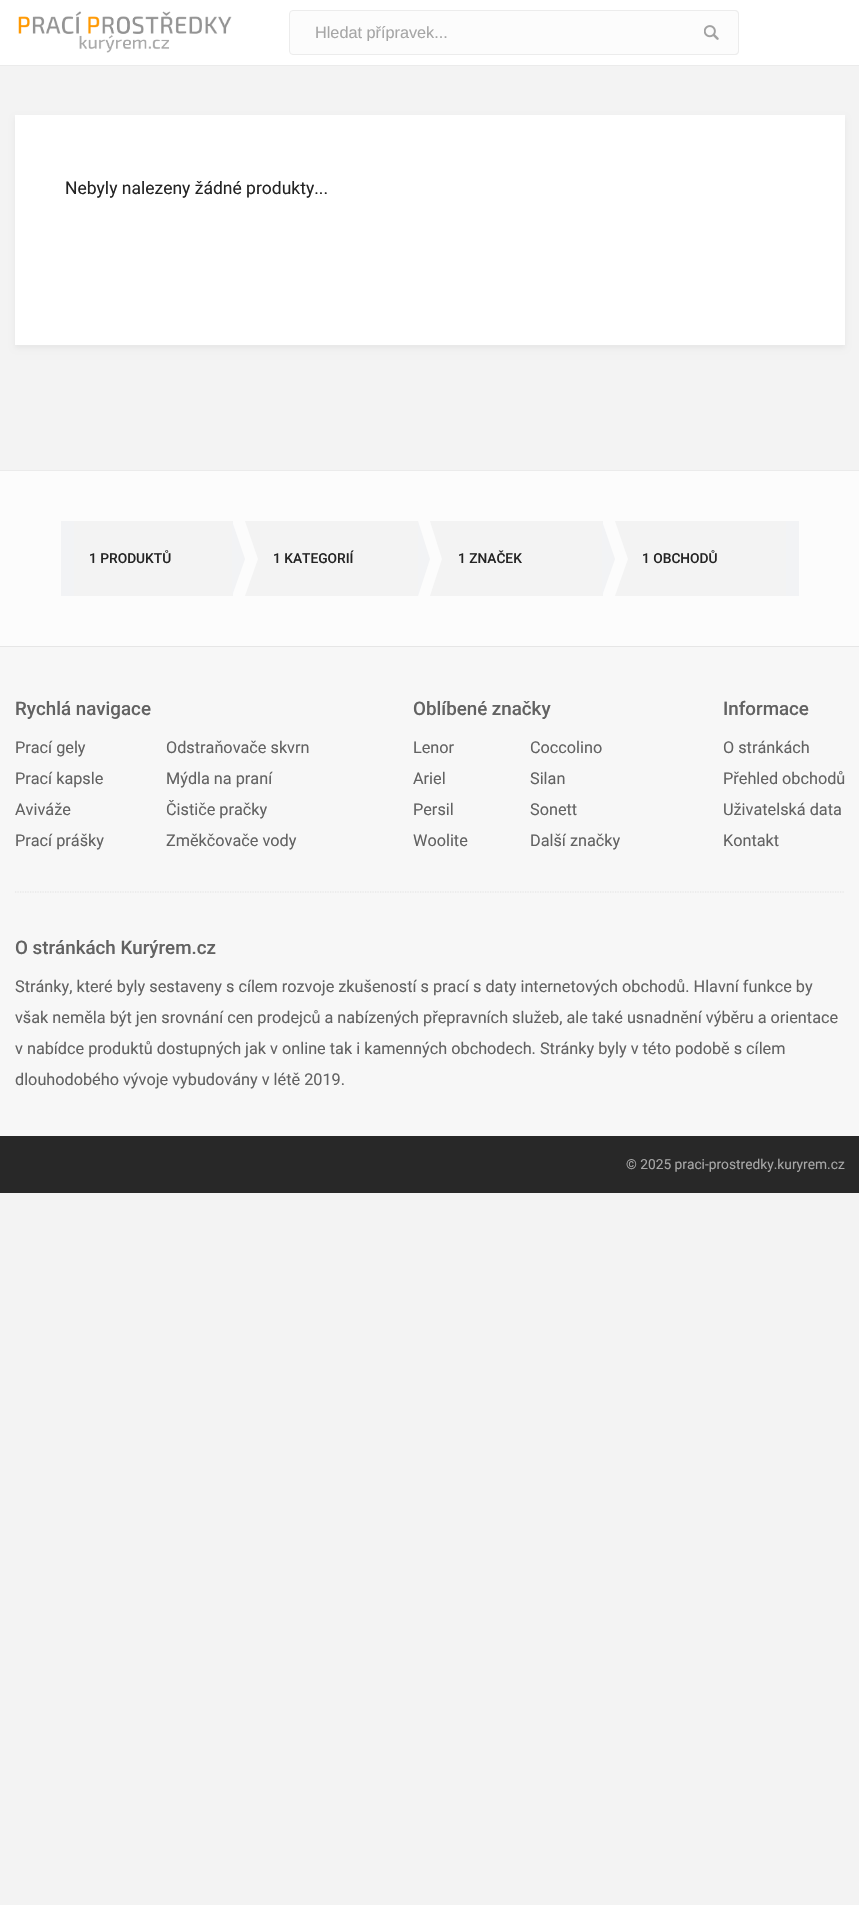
#include "include/core/SkBlurTypes.h"
#include "include/core/SkCanvas.h"
#include "include/core/SkData.h"
#include "include/core/SkFont.h"
#include "include/core/SkFontMgr.h"
#include "include/core/SkImage.h"
#include "include/core/SkMaskFilter.h"
#include "include/core/SkPaint.h"
#include "include/core/SkPathBuilder.h"
#include "include/core/SkTextBlob.h"
#include "include/effects/SkDashPathEffect.h"
#include "include/effects/SkGradientShader.h"
#include "include/utils/SkParsePath.h"

extern sk_sp<SkFontMgr> fontMgr;

void draw(SkCanvas* canvas) {
  SkPaint p;
  p.setAntiAlias(true);
  canvas->clear(SkColorSetRGB(243, 243, 243));
  p.setColor(SK_ColorWHITE);
  canvas->drawRect(SkRect::MakeLTRB(0, 0, 859, 65), p);
  p.setColor(SkColorSetRGB(235, 235, 235));
  canvas->drawRect(SkRect::MakeLTRB(0, 65, 859, 66), p);
  canvas->drawImageRect(SkImages::DeferredFromEncodedData(SkData::MakeFromFileName("images/1.png")), SkRect::MakeLTRB(18, 11, 232, 53), SkSamplingOptions());
  p.setColor(SkColorSetRGB(252, 252, 252));
  canvas->drawRoundRect(SkRect::MakeLTRB(289.5f, 10.5f, 738.5f, 54.5f), 3.5f, 3.5f, p);
  p.setStyle(SkPaint::kStroke_Style);
  p.setStrokeWidth(1);
  p.setColor(SkColorSetRGB(236, 236, 236));
  canvas->drawRoundRect(SkRect::MakeLTRB(289.5f, 10.5f, 738.5f, 54.5f), 3.5f, 3.5f, p);
  p.setStyle(SkPaint::kFill_Style);
  p.setColor(SkColorSetRGB(252, 252, 252));
  canvas->drawPath(SkPathBuilder().moveTo(684, 10).lineTo(735, 10).cubicTo(737, 10, 739, 12, 739, 14).lineTo(739, 51).cubicTo(739, 53, 737, 55, 735, 55).lineTo(684, 55).close().detach(), p);
  p.setColor(SkColorSetRGB(236, 236, 236));
  canvas->drawPath(SkPathBuilder(SkPathFillType::kEvenOdd).moveTo(684, 10).lineTo(735, 10).cubicTo(737, 10, 739, 12, 739, 14).lineTo(739, 51).cubicTo(739, 53, 737, 55, 735, 55).lineTo(684, 55).close().moveTo(684, 11).lineTo(735, 11).cubicTo(736, 11, 738, 12, 738, 14).lineTo(738, 51).cubicTo(738, 53, 736, 54, 735, 54).lineTo(684, 54).close().detach(), p);
  canvas->drawImageRect(SkImages::DeferredFromEncodedData(SkData::MakeFromFileName("images/2.png")), SkRect::MakeLTRB(704, 25, 719, 40), SkSamplingOptions());
  p.setColor(SkColorSetARGB(13, 0, 0, 0));
  p.setMaskFilter(SkMaskFilter::MakeBlur(kNormal_SkBlurStyle, 2.5f));
  canvas->drawRect(SkRect::MakeLTRB(15, 118, 845, 348), p);
  p.setMaskFilter(nullptr);
  p.setColor(SK_ColorWHITE);
  canvas->drawRect(SkRect::MakeLTRB(15, 115, 845, 345), p);
  p.setColor(SkColorSetRGB(252, 252, 252));
  canvas->drawRect(SkRect::MakeLTRB(0, 471, 859, 646), p);
  p.setColor(SkColorSetRGB(235, 235, 235));
  canvas->drawRect(SkRect::MakeLTRB(0, 470, 859, 471), p);
  p.setColor(SkColorSetRGB(243, 243, 243));
  canvas->drawRect(SkRect::MakeLTRB(74, 521, 233, 596), p);
  p.setColor(SkColorSetRGB(242, 243, 245));
  canvas->drawRect(SkRect::MakeLTRB(61, 521, 74, 596), p);
  canvas->drawPath(SkPathBuilder().moveTo(232, 596).lineTo(232, 521).lineTo(245, 559).close().detach(), p);
  p.setColor(SkColorSetRGB(243, 243, 243));
  canvas->drawRect(SkRect::MakeLTRB(245, 521, 418, 596), p);
  p.setColor(SkColorSetRGB(252, 252, 252));
  canvas->drawPath(SkPathBuilder().moveTo(245, 596).lineTo(245, 521).lineTo(258, 559).close().detach(), p);
  p.setColor(SkColorSetRGB(242, 243, 245));
  canvas->drawPath(SkPathBuilder().moveTo(418, 596).lineTo(418, 521).lineTo(430, 559).close().detach(), p);
  p.setColor(SkColorSetRGB(243, 243, 243));
  canvas->drawRect(SkRect::MakeLTRB(430, 521, 603, 596), p);
  p.setColor(SkColorSetRGB(252, 252, 252));
  canvas->drawPath(SkPathBuilder().moveTo(430, 596).lineTo(430, 521).lineTo(442, 559).close().detach(), p);
  p.setColor(SkColorSetRGB(242, 243, 245));
  canvas->drawPath(SkPathBuilder().moveTo(602, 596).lineTo(602, 521).lineTo(615, 559).close().detach(), p);
  p.setColor(SkColorSetRGB(243, 243, 243));
  canvas->drawRect(SkRect::MakeLTRB(615, 521, 786, 596), p);
  p.setColor(SkColorSetRGB(252, 252, 252));
  canvas->drawPath(SkPathBuilder().moveTo(615, 596).lineTo(615, 521).lineTo(628, 559).close().detach(), p);
  p.setColor(SkColorSetRGB(242, 243, 245));
  canvas->drawRect(SkRect::MakeLTRB(786, 521, 799, 596), p);
  p.setColor(SkColorSetRGB(247, 247, 247));
  canvas->drawRect(SkRect::MakeLTRB(0, 647, 859, 1136), p);
  p.setColor(SkColorSetRGB(230, 230, 230));
  canvas->drawRect(SkRect::MakeLTRB(0, 646, 859, 647), p);
  p.setStyle(SkPaint::kStroke_Style);
  p.setStrokeWidth(1.2f);
  p.setColor(SkColorSetRGB(226, 226, 226));
  p.setPathEffect(SkDashPathEffect::Make({{1.25f, 1.25f}}, 0));
  canvas->drawPath(SkPathBuilder().moveTo(15, 892).lineTo(845, 892).detach(), p);
  p.setPathEffect(nullptr);
  p.setStyle(SkPaint::kFill_Style);
  p.setColor(SkColorSetRGB(40, 40, 40));
  canvas->drawRect(SkRect::MakeLTRB(0, 1136, 859, 1193), p);
  canvas->save();
  canvas->clipRect(SkRect::MakeLTRB(315, 23, 683, 41));
  SkFont font1(fontMgr->matchFamilyStyle("Liberation Sans", SkFontStyle::Normal()), 16.25f);
  font1.setSubpixel(true);
  p.setColor(SkColorSetRGB(166, 166, 166));
  canvas->drawString("Hledat přípravek...", 315, 38, font1, p);
  canvas->restore();
  SkFont font2(fontMgr->matchFamilyStyle("Roboto", SkFontStyle::Normal()), 17.5f);
  font2.setSubpixel(true);
  p.setColor(SkColorSetRGB(36, 36, 36));
  canvas->drawString("Nebyly nalezeny žádné produkty...", 65, 194, font2, p);
  SkFont font3(fontMgr->matchFamilyStyle("Roboto", SkFontStyle(500, SkFontStyle::kNormal_Width, SkFontStyle::kUpright_Slant)), 13.75f);
  font3.setSubpixel(true);
  canvas->drawString("1 PRODUKTŮ", 89, 563, font3, p);
  canvas->drawString("1 KATEGORIÍ", 273, 563, font3, p);
  canvas->drawString("1 ZNAČEK", 458, 563, font3, p);
  canvas->drawString("1 OBCHODŮ", 642, 563, font3, p);
  SkFont font4(fontMgr->matchFamilyStyle("Roboto", SkFontStyle(500, SkFontStyle::kNormal_Width, SkFontStyle::kUpright_Slant)), 18.75f);
  font4.setSubpixel(true);
  p.setColor(SkColorSetRGB(98, 98, 98));
  canvas->drawString("Rychlá navigace", 15, 715, font4, p);
  SkFont font5(fontMgr->matchFamilyStyle("Roboto", SkFontStyle::Normal()), 16.25f);
  font5.setSubpixel(true);
  canvas->drawString("Prací gely", 15, 753, font5, p);
  canvas->drawString("Prací kapsle", 15, 784, font5, p);
  canvas->drawString("Aviváže", 15, 815, font5, p);
  canvas->drawString("Prací prášky", 15, 846, font5, p);
  canvas->drawString("Odstraňovače skvrn", 166, 753, font5, p);
  canvas->drawString("Mýdla na praní", 166, 784, font5, p);
  canvas->drawString("Čističe pračky", 166, 815, font5, p);
  canvas->drawString("Změkčovače vody", 166, 846, font5, p);
  canvas->drawString("Oblíbené značky", 413, 715, font4, p);
  canvas->drawString("Lenor", 413, 753, font5, p);
  canvas->drawString("Ariel", 413, 784, font5, p);
  canvas->drawString("Persil", 413, 815, font5, p);
  canvas->drawString("Woolite", 413, 846, font5, p);
  canvas->drawString("Coccolino", 530, 753, font5, p);
  canvas->drawString("Silan", 530, 784, font5, p);
  canvas->drawString("Sonett", 530, 815, font5, p);
  canvas->drawString("Další značky", 530, 846, font5, p);
  canvas->drawString("Informace", 723, 715, font4, p);
  canvas->drawString("O stránkách", 723, 753, font5, p);
  canvas->drawString("Přehled obchodů", 723, 784, font5, p);
  canvas->drawString("Uživatelská data", 723, 815, font5, p);
  canvas->drawString("Kontakt", 723, 846, font5, p);
  canvas->drawString("O stránkách Kurýrem.cz", 15, 954, font4, p);
  canvas->drawString("Stránky, které byly sestaveny s cílem rozvoje zkušeností s prací s daty internetových obchodů. Hlavní funkce by", 15, 992, font5, p);
  canvas->drawString("však neměla být jen srovnání cen prodejců a nabízených přepravních služeb, ale také usnadnění výběru a orientace", 15, 1023, font5, p);
  canvas->drawString("v nabídce produktů dostupných jak v online tak i kamenných obchodech. Stránky byly v této podobě s cílem", 15, 1054, font5, p);
  canvas->drawString("dlouhodobého vývoje vybudovány v létě 2019.", 15, 1085, font5, p);
  SkFont font6(fontMgr->matchFamilyStyle("Roboto", SkFontStyle::Normal()), 13.75f);
  font6.setSubpixel(true);
  p.setColor(SkColorSetRGB(166, 166, 166));
  canvas->drawString("© 2025 praci-prostredky.kuryrem.cz", 626, 1169, font6, p);
}
